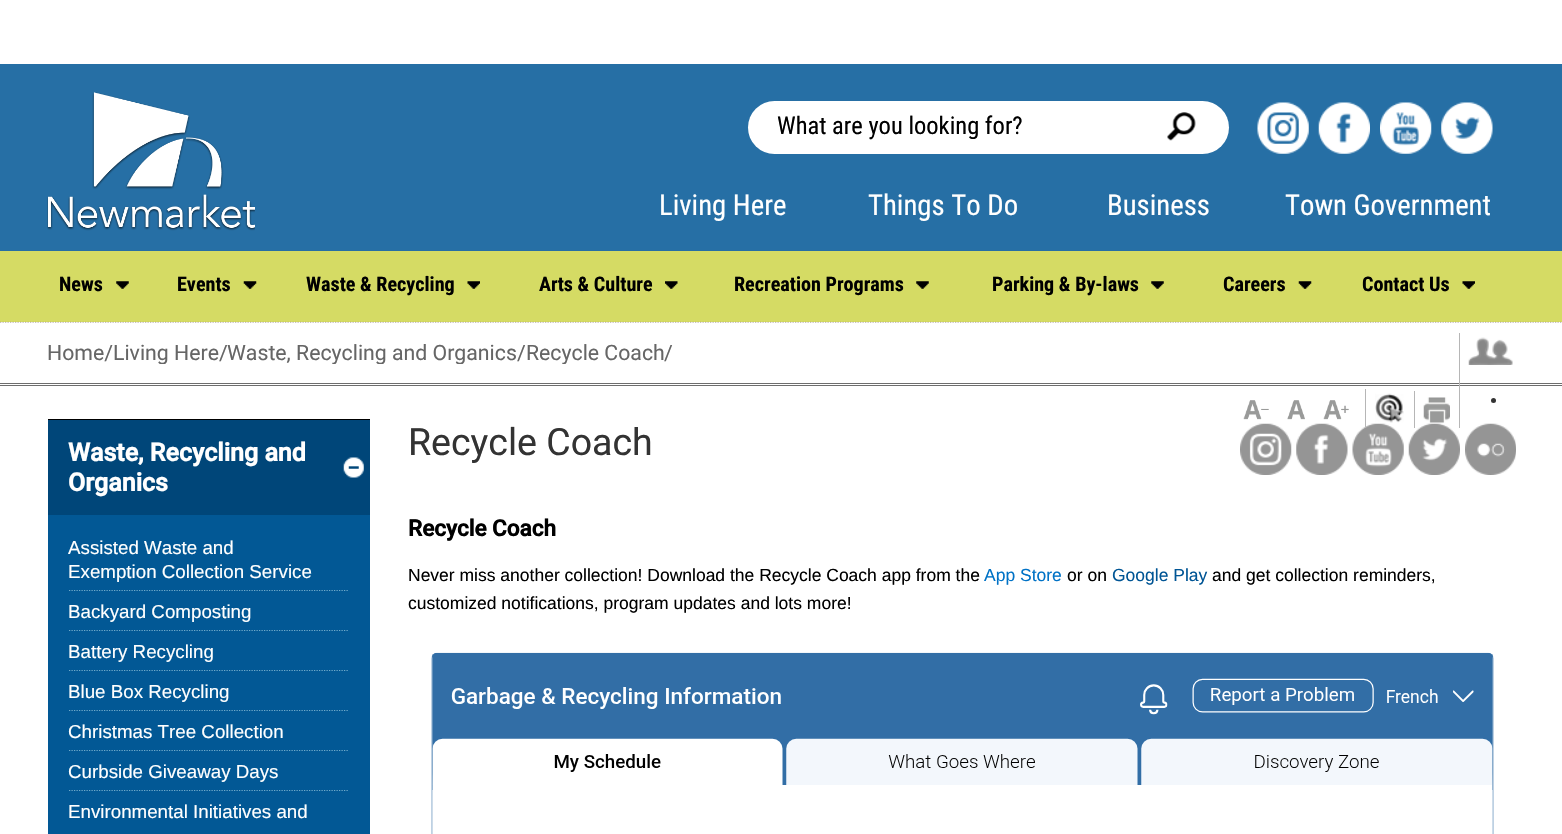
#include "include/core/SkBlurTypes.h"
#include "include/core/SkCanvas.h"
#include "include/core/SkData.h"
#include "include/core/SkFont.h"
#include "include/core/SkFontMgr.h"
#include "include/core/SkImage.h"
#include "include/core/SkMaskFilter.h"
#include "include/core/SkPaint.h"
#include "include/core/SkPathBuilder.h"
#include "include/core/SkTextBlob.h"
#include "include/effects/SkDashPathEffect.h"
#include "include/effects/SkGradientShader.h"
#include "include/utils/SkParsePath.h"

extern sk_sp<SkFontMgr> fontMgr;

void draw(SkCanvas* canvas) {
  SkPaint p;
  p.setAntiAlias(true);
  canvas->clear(SK_ColorWHITE);
  p.setColor(SkColorSetRGB(38, 111, 165));
  canvas->drawRect(SkRect::MakeLTRB(0, 64, 1562, 251), p);
  canvas->drawImageRect(SkImages::DeferredFromEncodedData(SkData::MakeFromFileName("images/1.png")), SkRect::MakeLTRB(47, 92, 255, 231), SkSamplingOptions());
  p.setColor(SK_ColorWHITE);
  canvas->drawRoundRect(SkRect::MakeLTRB(748, 101, 1229, 154), 26.5f, 26.5f, p);
  canvas->drawImageRect(SkImages::DeferredFromEncodedData(SkData::MakeFromFileName("images/2.png")), SkRect::MakeLTRB(1167, 112, 1196, 141), SkSamplingOptions());
  canvas->drawImageRect(SkImages::DeferredFromEncodedData(SkData::MakeFromFileName("images/3.png")), SkRect::MakeLTRB(1257, 102, 1309, 154), SkSamplingOptions());
  canvas->drawImageRect(SkImages::DeferredFromEncodedData(SkData::MakeFromFileName("images/4.png")), SkRect::MakeLTRB(1318, 102, 1370, 154), SkSamplingOptions());
  canvas->drawImageRect(SkImages::DeferredFromEncodedData(SkData::MakeFromFileName("images/5.png")), SkRect::MakeLTRB(1380, 102, 1432, 154), SkSamplingOptions());
  canvas->drawImageRect(SkImages::DeferredFromEncodedData(SkData::MakeFromFileName("images/6.png")), SkRect::MakeLTRB(1441, 102, 1493, 154), SkSamplingOptions());
  p.setStyle(SkPaint::kStroke_Style);
  p.setStrokeWidth(1.2f);
  p.setColor(SkColorSetRGB(144, 128, 125));
  p.setPathEffect(SkDashPathEffect::Make({{1.25f, 1.25f}}, 0));
  canvas->drawPath(SkPathBuilder().moveTo(0, 322).lineTo(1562.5f, 322).detach(), p);
  p.setPathEffect(nullptr);
  p.setStyle(SkPaint::kFill_Style);
  p.setColor(SkColorSetARGB(217, 206, 213, 73));
  canvas->drawRect(SkRect::MakeLTRB(0, 251, 1562, 322), p);
  canvas->drawImageRect(SkImages::DeferredFromEncodedData(SkData::MakeFromFileName("images/7.png")), SkRect::MakeLTRB(116, 281, 129, 289), SkSamplingOptions());
  canvas->drawImageRect(SkImages::DeferredFromEncodedData(SkData::MakeFromFileName("images/8.png")), SkRect::MakeLTRB(243, 281, 257, 289), SkSamplingOptions());
  canvas->drawImageRect(SkImages::DeferredFromEncodedData(SkData::MakeFromFileName("images/9.png")), SkRect::MakeLTRB(467, 281, 480, 289), SkSamplingOptions());
  canvas->drawImageRect(SkImages::DeferredFromEncodedData(SkData::MakeFromFileName("images/10.png")), SkRect::MakeLTRB(665, 281, 678, 289), SkSamplingOptions());
  canvas->drawImageRect(SkImages::DeferredFromEncodedData(SkData::MakeFromFileName("images/7.png")), SkRect::MakeLTRB(916, 281, 929, 289), SkSamplingOptions());
  canvas->drawImageRect(SkImages::DeferredFromEncodedData(SkData::MakeFromFileName("images/7.png")), SkRect::MakeLTRB(1151, 281, 1164, 289), SkSamplingOptions());
  canvas->drawImageRect(SkImages::DeferredFromEncodedData(SkData::MakeFromFileName("images/8.png")), SkRect::MakeLTRB(1298, 281, 1312, 289), SkSamplingOptions());
  canvas->drawImageRect(SkImages::DeferredFromEncodedData(SkData::MakeFromFileName("images/9.png")), SkRect::MakeLTRB(1462, 281, 1475, 289), SkSamplingOptions());
  p.setColor(SkColorSetRGB(109, 109, 109));
  canvas->drawRect(SkRect::MakeLTRB(0, 383, 1562, 384), p);
  canvas->drawRect(SkRect::MakeLTRB(0, 385, 1562, 386), p);
  canvas->drawImageRect(SkImages::DeferredFromEncodedData(SkData::MakeFromFileName("images/11.png")), SkRect::MakeLTRB(1243, 400, 1269, 420), SkSamplingOptions());
  canvas->drawImageRect(SkImages::DeferredFromEncodedData(SkData::MakeFromFileName("images/12.png")), SkRect::MakeLTRB(1287, 400, 1305, 420), SkSamplingOptions());
  canvas->drawImageRect(SkImages::DeferredFromEncodedData(SkData::MakeFromFileName("images/13.png")), SkRect::MakeLTRB(1323, 400, 1349, 420), SkSamplingOptions());
  canvas->drawImageRect(SkImages::DeferredFromEncodedData(SkData::MakeFromFileName("images/20.png")), SkRect::MakeLTRB(1352, 423, 1404, 475), SkSamplingOptions());
  p.setColor(SkColorSetRGB(182, 182, 182));
  canvas->drawRect(SkRect::MakeLTRB(1365, 389, 1366, 428), p);
  canvas->drawImageRect(SkImages::DeferredFromEncodedData(SkData::MakeFromFileName("images/14.png")), SkRect::MakeLTRB(1375, 393, 1404, 423), SkSamplingOptions());
  canvas->drawImageRect(SkImages::DeferredFromEncodedData(SkData::MakeFromFileName("images/21.png")), SkRect::MakeLTRB(1408, 423, 1460, 475), SkSamplingOptions());
  canvas->drawRect(SkRect::MakeLTRB(1414, 391, 1415, 428), p);
  canvas->drawImageRect(SkImages::DeferredFromEncodedData(SkData::MakeFromFileName("images/15.png")), SkRect::MakeLTRB(1423, 397, 1450, 423), SkSamplingOptions());
  canvas->drawRect(SkRect::MakeLTRB(1459, 333, 1460, 428), p);
  canvas->drawImageRect(SkImages::DeferredFromEncodedData(SkData::MakeFromFileName("images/16.png")), SkRect::MakeLTRB(1468, 337, 1513, 365), SkSamplingOptions());
  p.setColor(SkColorSetRGB(51, 51, 51));
  canvas->drawCircle(1493.5f, 400.5f, 2.5f, p);
  p.setColor(SK_ColorBLACK);
  canvas->drawRect(SkRect::MakeLTRB(48, 419, 370, 420), p);
  p.setColor(SkColorSetRGB(0, 70, 121));
  canvas->drawRect(SkRect::MakeLTRB(48, 420, 370, 515), p);
  canvas->drawImageRect(SkImages::DeferredFromEncodedData(SkData::MakeFromFileName("images/17.png")), SkRect::MakeLTRB(343, 457, 364, 478), SkSamplingOptions());
  p.setColor(SkColorSetRGB(2, 88, 149));
  canvas->drawRect(SkRect::MakeLTRB(48, 515, 370, 834), p);
  p.setStyle(SkPaint::kStroke_Style);
  p.setColor(SkColorSetRGB(113, 171, 203));
  p.setPathEffect(SkDashPathEffect::Make({{1.25f, 1.25f}}, 0));
  canvas->drawPath(SkPathBuilder().moveTo(69, 590.5f).lineTo(349, 590.5f).detach(), p);
  p.setPathEffect(nullptr);
  p.setPathEffect(SkDashPathEffect::Make({{1.25f, 1.25f}}, 0));
  canvas->drawPath(SkPathBuilder().moveTo(69, 630.5f).lineTo(349, 630.5f).detach(), p);
  p.setPathEffect(nullptr);
  p.setPathEffect(SkDashPathEffect::Make({{1.25f, 1.25f}}, 0));
  canvas->drawPath(SkPathBuilder().moveTo(69, 670.5f).lineTo(349, 670.5f).detach(), p);
  p.setPathEffect(nullptr);
  p.setPathEffect(SkDashPathEffect::Make({{1.25f, 1.25f}}, 0));
  canvas->drawPath(SkPathBuilder().moveTo(69, 710.5f).lineTo(349, 710.5f).detach(), p);
  p.setPathEffect(nullptr);
  p.setPathEffect(SkDashPathEffect::Make({{1.25f, 1.25f}}, 0));
  canvas->drawPath(SkPathBuilder().moveTo(69, 750.5f).lineTo(349, 750.5f).detach(), p);
  p.setPathEffect(nullptr);
  p.setPathEffect(SkDashPathEffect::Make({{1.25f, 1.25f}}, 0));
  canvas->drawPath(SkPathBuilder().moveTo(69, 790.5f).lineTo(349, 790.5f).detach(), p);
  p.setPathEffect(nullptr);
  canvas->drawImageRect(SkImages::DeferredFromEncodedData(SkData::MakeFromFileName("images/18.png")), SkRect::MakeLTRB(1240, 423, 1292, 475), SkSamplingOptions());
  canvas->drawImageRect(SkImages::DeferredFromEncodedData(SkData::MakeFromFileName("images/19.png")), SkRect::MakeLTRB(1296, 423, 1348, 475), SkSamplingOptions());
  canvas->drawImageRect(SkImages::DeferredFromEncodedData(SkData::MakeFromFileName("images/22.png")), SkRect::MakeLTRB(1465, 423, 1516, 475), SkSamplingOptions());
  canvas->drawImageRect(SkImages::DeferredFromEncodedData(SkData::MakeFromFileName("images/23.png")), SkRect::MakeLTRB(431, 652, 1494, 834), SkSamplingOptions());
  SkFont font1(fontMgr->matchFamilyStyle("Roboto Condensed", SkFontStyle::Normal()), 24.5f);
  font1.setSubpixel(true);
  p.setStyle(SkPaint::kFill_Style);
  p.setColor(SK_ColorBLACK);
  canvas->drawString("What are you looking for?", 777, 134, font1, p);
  SkFont font2(fontMgr->matchFamilyStyle("Roboto Condensed", SkFontStyle::Normal()), 28.75f);
  font2.setSubpixel(true);
  p.setColor(SK_ColorWHITE);
  canvas->drawString("Living Here", 659, 215, font2, p);
  canvas->drawString("Things To Do", 868, 215, font2, p);
  canvas->drawString("Business", 1107, 215, font2, p);
  canvas->drawString("Town Government", 1285, 215, font2, p);
  SkFont font3(fontMgr->matchFamilyStyle("Roboto Condensed", SkFontStyle::Bold()), 20.1f);
  font3.setSubpixel(true);
  p.setColor(SK_ColorBLACK);
  canvas->drawString("News", 59, 291, font3, p);
  canvas->drawString("Events", 177, 291, font3, p);
  canvas->drawString("Waste & Recycling", 306, 291, font3, p);
  canvas->drawString("Arts & Culture", 539, 291, font3, p);
  canvas->drawString("Recreation Programs", 734, 291, font3, p);
  canvas->drawString("Parking & By-laws", 992, 291, font3, p);
  canvas->drawString("Careers", 1223, 291, font3, p);
  canvas->drawString("Contact Us", 1362, 291, font3, p);
  SkFont font4(fontMgr->matchFamilyStyle("Roboto", SkFontStyle::Normal()), 21.25f);
  font4.setSubpixel(true);
  p.setColor(SkColorSetRGB(102, 102, 102));
  canvas->drawString("Home/", 47, 360, font4, p);
  canvas->save();
  canvas->clipRect(SkRect::MakeLTRB(48, 341, 1166, 364));
  canvas->drawString("Living Here", 113, 360, font4, p);
  canvas->restore();
  canvas->drawString("/", 219, 360, font4, p);
  canvas->save();
  canvas->clipRect(SkRect::MakeLTRB(48, 341, 1166, 364));
  canvas->drawString("Waste, Recycling and Organics", 227, 360, font4, p);
  canvas->restore();
  canvas->drawString("/", 517, 360, font4, p);
  canvas->save();
  canvas->clipRect(SkRect::MakeLTRB(48, 341, 1166, 364));
  canvas->drawString("Recycle Coach", 526, 360, font4, p);
  canvas->restore();
  canvas->drawString("/", 664, 360, font4, p);
  SkFont font5(fontMgr->matchFamilyStyle("Roboto", SkFontStyle::Bold()), 25);
  font5.setSubpixel(true);
  p.setColor(SK_ColorWHITE);
  canvas->drawString("Waste, Recycling and", 68, 461, font5, p);
  canvas->drawString("Organics", 68, 491, font5, p);
  SkFont font6(fontMgr->matchFamilyStyle("Liberation Sans", SkFontStyle::Normal()), 18.75f);
  font6.setSubpixel(true);
  canvas->drawString("Assisted Waste and", 68, 554, font6, p);
  canvas->drawString("Exemption Collection Service", 68, 578, font6, p);
  canvas->drawString("Backyard Composting", 68, 618, font6, p);
  canvas->drawString("Battery Recycling", 68, 658, font6, p);
  canvas->drawString("Blue Box Recycling", 68, 698, font6, p);
  canvas->drawString("Christmas Tree Collection", 68, 738, font6, p);
  canvas->drawString("Curbside Giveaway Days", 68, 778, font6, p);
  canvas->drawString("Environmental Initiatives and", 68, 818, font6, p);
  SkFont font7(fontMgr->matchFamilyStyle("Roboto", SkFontStyle::Normal()), 37.5f);
  font7.setSubpixel(true);
  p.setColor(SkColorSetRGB(51, 51, 51));
  canvas->drawString("Recycle Coach", 408, 455, font7, p);
  SkFont font8(fontMgr->matchFamilyStyle("Roboto", SkFontStyle::Bold()), 22.5f);
  font8.setSubpixel(true);
  p.setColor(SK_ColorBLACK);
  canvas->drawString("Recycle Coach", 408, 536, font8, p);
  SkFont font9(fontMgr->matchFamilyStyle("Liberation Sans", SkFontStyle::Normal()), 17.5f);
  font9.setSubpixel(true);
  canvas->drawString("Never miss another collection! Download the Recycle Coach app from the", 408, 581, font9, p);
  p.setColor(SkColorSetRGB(0, 114, 198));
  canvas->drawString("App Store", 984, 581, font9, p);
  p.setColor(SK_ColorBLACK);
  canvas->drawString("or on", 1067, 581, font9, p);
  p.setColor(SkColorSetRGB(0, 85, 149));
  canvas->drawString("Google Play", 1112, 581, font9, p);
  p.setColor(SK_ColorBLACK);
  canvas->drawString("and get collection reminders,", 1212, 581, font9, p);
  canvas->drawString("customized notifications, program updates and lots more!", 408, 609, font9, p);
}
